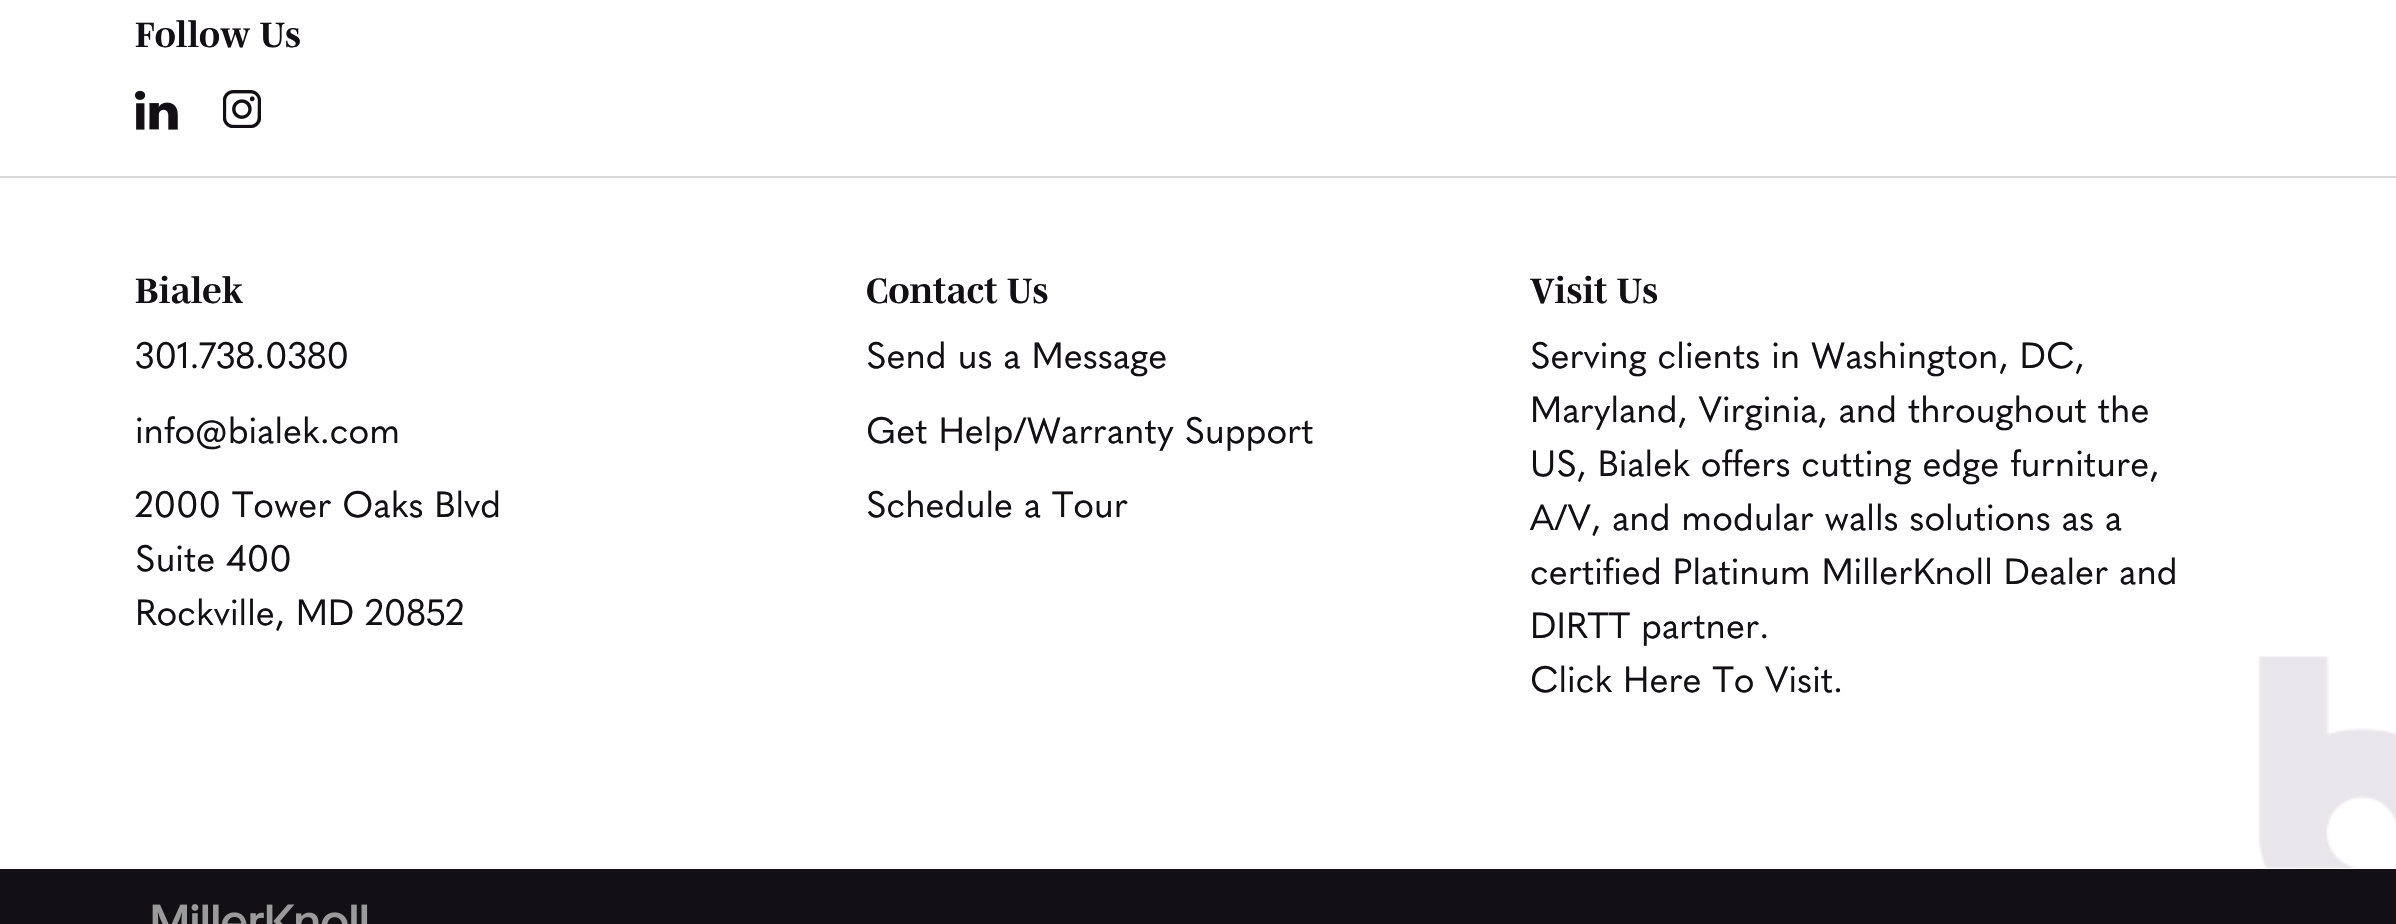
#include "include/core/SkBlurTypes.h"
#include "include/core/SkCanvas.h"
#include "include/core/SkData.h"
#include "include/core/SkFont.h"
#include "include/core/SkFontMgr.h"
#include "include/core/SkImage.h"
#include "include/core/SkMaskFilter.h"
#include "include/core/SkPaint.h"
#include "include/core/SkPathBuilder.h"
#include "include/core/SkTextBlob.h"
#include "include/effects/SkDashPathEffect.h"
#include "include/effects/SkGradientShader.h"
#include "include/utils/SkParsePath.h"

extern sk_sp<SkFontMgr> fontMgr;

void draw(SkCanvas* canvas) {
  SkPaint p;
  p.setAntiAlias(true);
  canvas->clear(SK_ColorWHITE);
  p.setColor(SkColorSetRGB(217, 217, 217));
  canvas->drawRect(SkRect::MakeLTRB(0, 176, 2396, 178), p);
  canvas->drawImageRect(SkImages::DeferredFromEncodedData(SkData::MakeFromFileName("images/1.png")), SkRect::MakeLTRB(135, 90, 178, 130), SkSamplingOptions());
  canvas->drawImageRect(SkImages::DeferredFromEncodedData(SkData::MakeFromFileName("images/2.png")), SkRect::MakeLTRB(223, 90, 261, 128), SkSamplingOptions());
  canvas->drawImageRect(SkImages::DeferredFromEncodedData(SkData::MakeFromFileName("images/3.png")), SkRect::MakeLTRB(2258, 656, 2396, 868), SkSamplingOptions());
  p.setColor(SkColorSetRGB(18, 16, 20));
  canvas->drawRect(SkRect::MakeLTRB(0, 869, 2396, 924), p);
  canvas->drawImageRect(SkImages::DeferredFromEncodedData(SkData::MakeFromFileName("images/4.png")), SkRect::MakeLTRB(152, 904, 368, 924), SkSamplingOptions());
  SkFont font1(fontMgr->matchFamilyStyle("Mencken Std", SkFontStyle::Bold()), 36);
  font1.setSubpixel(true);
  canvas->drawString("Follow Us", 135, 47, font1, p);
  canvas->drawString("Bialek", 135, 303, font1, p);
  SkFont font2(fontMgr->matchFamilyStyle("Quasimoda", SkFontStyle::Normal()), 36);
  font2.setSubpixel(true);
  canvas->drawString("301.738.0380", 135, 368, font2, p);
  canvas->drawString("info@bialek.com", 135, 443, font2, p);
  canvas->drawString("2000 Tower Oaks Blvd", 135, 517, font2, p);
  canvas->drawString("Suite 400", 135, 571, font2, p);
  canvas->drawString("Rockville, MD 20852", 135, 625, font2, p);
  canvas->drawString("Contact Us", 866, 303, font1, p);
  canvas->drawString("Send us a Message", 866, 368, font2, p);
  canvas->drawString("Get Help/Warranty Support", 866, 443, font2, p);
  canvas->drawString("Schedule a Tour", 866, 517, font2, p);
  canvas->drawString("Visit Us", 1530, 303, font1, p);
  canvas->drawString("Serving clients in Washington, DC,", 1530, 368, font2, p);
  canvas->drawString("Maryland, Virginia, and throughout the", 1530, 422, font2, p);
  canvas->drawString("US, Bialek offers cutting edge furniture,", 1530, 476, font2, p);
  canvas->drawString("A/V, and modular walls solutions as a", 1530, 530, font2, p);
  canvas->drawString("certified Platinum MillerKnoll Dealer and", 1530, 584, font2, p);
  canvas->drawString("DIRTT partner.", 1530, 638, font2, p);
  canvas->drawString("Click Here To Visit.", 1530, 692, font2, p);
}
